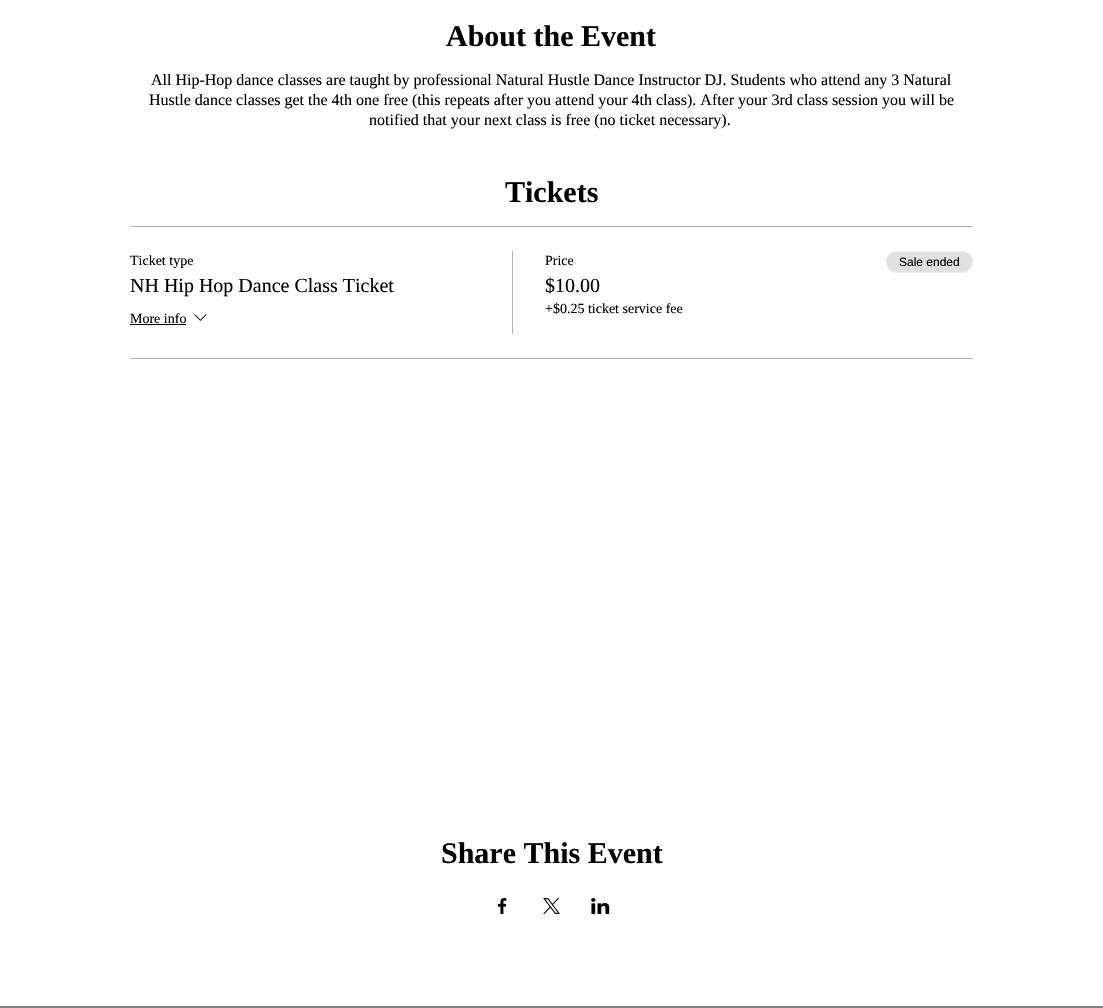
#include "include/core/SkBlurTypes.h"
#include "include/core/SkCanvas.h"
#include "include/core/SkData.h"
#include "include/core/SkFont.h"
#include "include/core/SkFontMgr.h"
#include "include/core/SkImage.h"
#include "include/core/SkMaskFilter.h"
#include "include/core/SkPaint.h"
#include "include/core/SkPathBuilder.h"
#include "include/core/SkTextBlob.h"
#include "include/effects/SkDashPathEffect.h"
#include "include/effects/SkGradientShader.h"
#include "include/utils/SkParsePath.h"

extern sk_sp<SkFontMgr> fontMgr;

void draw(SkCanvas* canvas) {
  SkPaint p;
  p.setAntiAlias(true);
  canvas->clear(SK_ColorWHITE);
  p.setColor(SkColorSetRGB(179, 179, 179));
  canvas->drawRect(SkRect::MakeLTRB(130, 226, 973, 227), p);
  canvas->drawRect(SkRect::MakeLTRB(130, 358, 973, 359), p);
  p.setColor(SK_ColorBLACK);
  canvas->drawRect(SkRect::MakeLTRB(130, 324, 186, 325), p);
  canvas->drawImageRect(SkImages::DeferredFromEncodedData(SkData::MakeFromFileName("images/1.png")), SkRect::MakeLTRB(194, 314, 207, 321), SkSamplingOptions());
  p.setColor(SkColorSetRGB(179, 179, 179));
  canvas->drawRect(SkRect::MakeLTRB(512, 251, 513, 334), p);
  p.setColor(SkColorSetRGB(224, 224, 224));
  canvas->drawRoundRect(SkRect::MakeLTRB(886, 251, 973, 273), 11, 11, p);
  p.setStyle(SkPaint::kStroke_Style);
  p.setStrokeWidth(1);
  p.setColor(SkColorSetARGB(102, 255, 255, 255));
  canvas->drawRoundRect(SkRect::MakeLTRB(886.5f, 251.5f, 972.5f, 272.5f), 10.5f, 10.5f, p);
  canvas->drawImageRect(SkImages::DeferredFromEncodedData(SkData::MakeFromFileName("images/2.png")), SkRect::MakeLTRB(498, 898, 507, 914), SkSamplingOptions());
  canvas->drawImageRect(SkImages::DeferredFromEncodedData(SkData::MakeFromFileName("images/3.png")), SkRect::MakeLTRB(543, 898, 560, 914), SkSamplingOptions());
  canvas->drawImageRect(SkImages::DeferredFromEncodedData(SkData::MakeFromFileName("images/4.png")), SkRect::MakeLTRB(591, 898, 610, 914), SkSamplingOptions());
  p.setStyle(SkPaint::kFill_Style);
  p.setColor(SkColorSetRGB(130, 130, 130));
  canvas->drawRect(SkRect::MakeLTRB(0, 1006, 1103, 1008), p);
  SkFont font1(fontMgr->matchFamilyStyle("Liberation Serif", SkFontStyle::Bold()), 30);
  font1.setSubpixel(true);
  p.setColor(SK_ColorBLACK);
  canvas->drawString("About the Event", 446, 46, font1, p);
  SkFont font2(fontMgr->matchFamilyStyle("Liberation Serif", SkFontStyle::Normal()), 16);
  font2.setSubpixel(true);
  canvas->drawString("All Hip-Hop dance classes are taught by professional Natural Hustle Dance Instructor DJ. Students who attend any 3 Natural", 151, 85, font2, p);
  canvas->drawString("Hustle dance classes get the 4th one free (this repeats after you attend your 4th class). After your 3rd class session you will be", 149, 105, font2, p);
  canvas->drawString("notified that your next class is free (no ticket necessary).", 369, 125, font2, p);
  canvas->drawString("Tickets", 505, 202, font1, p);
  SkFont font3(fontMgr->matchFamilyStyle("Liberation Serif", SkFontStyle::Normal()), 14);
  font3.setSubpixel(true);
  canvas->drawString("Ticket type", 130, 265, font3, p);
  SkFont font4(fontMgr->matchFamilyStyle("Liberation Serif", SkFontStyle::Normal()), 20);
  font4.setSubpixel(true);
  canvas->drawString("NH Hip Hop Dance Class Ticket", 130, 292, font4, p);
  canvas->drawString("More info", 130, 323, font3, p);
  canvas->drawString("Price", 545, 265, font3, p);
  canvas->drawString("$10.00", 545, 292, font4, p);
  canvas->drawString("+$0.25 ticket service fee", 545, 313, font3, p);
  SkFont font5(fontMgr->matchFamilyStyle("Liberation Sans", SkFontStyle::Normal()), 12);
  font5.setSubpixel(true);
  canvas->drawString("Sale ended", 899, 266, font5, p);
  canvas->drawString("Share This Event", 441, 863, font1, p);
}
